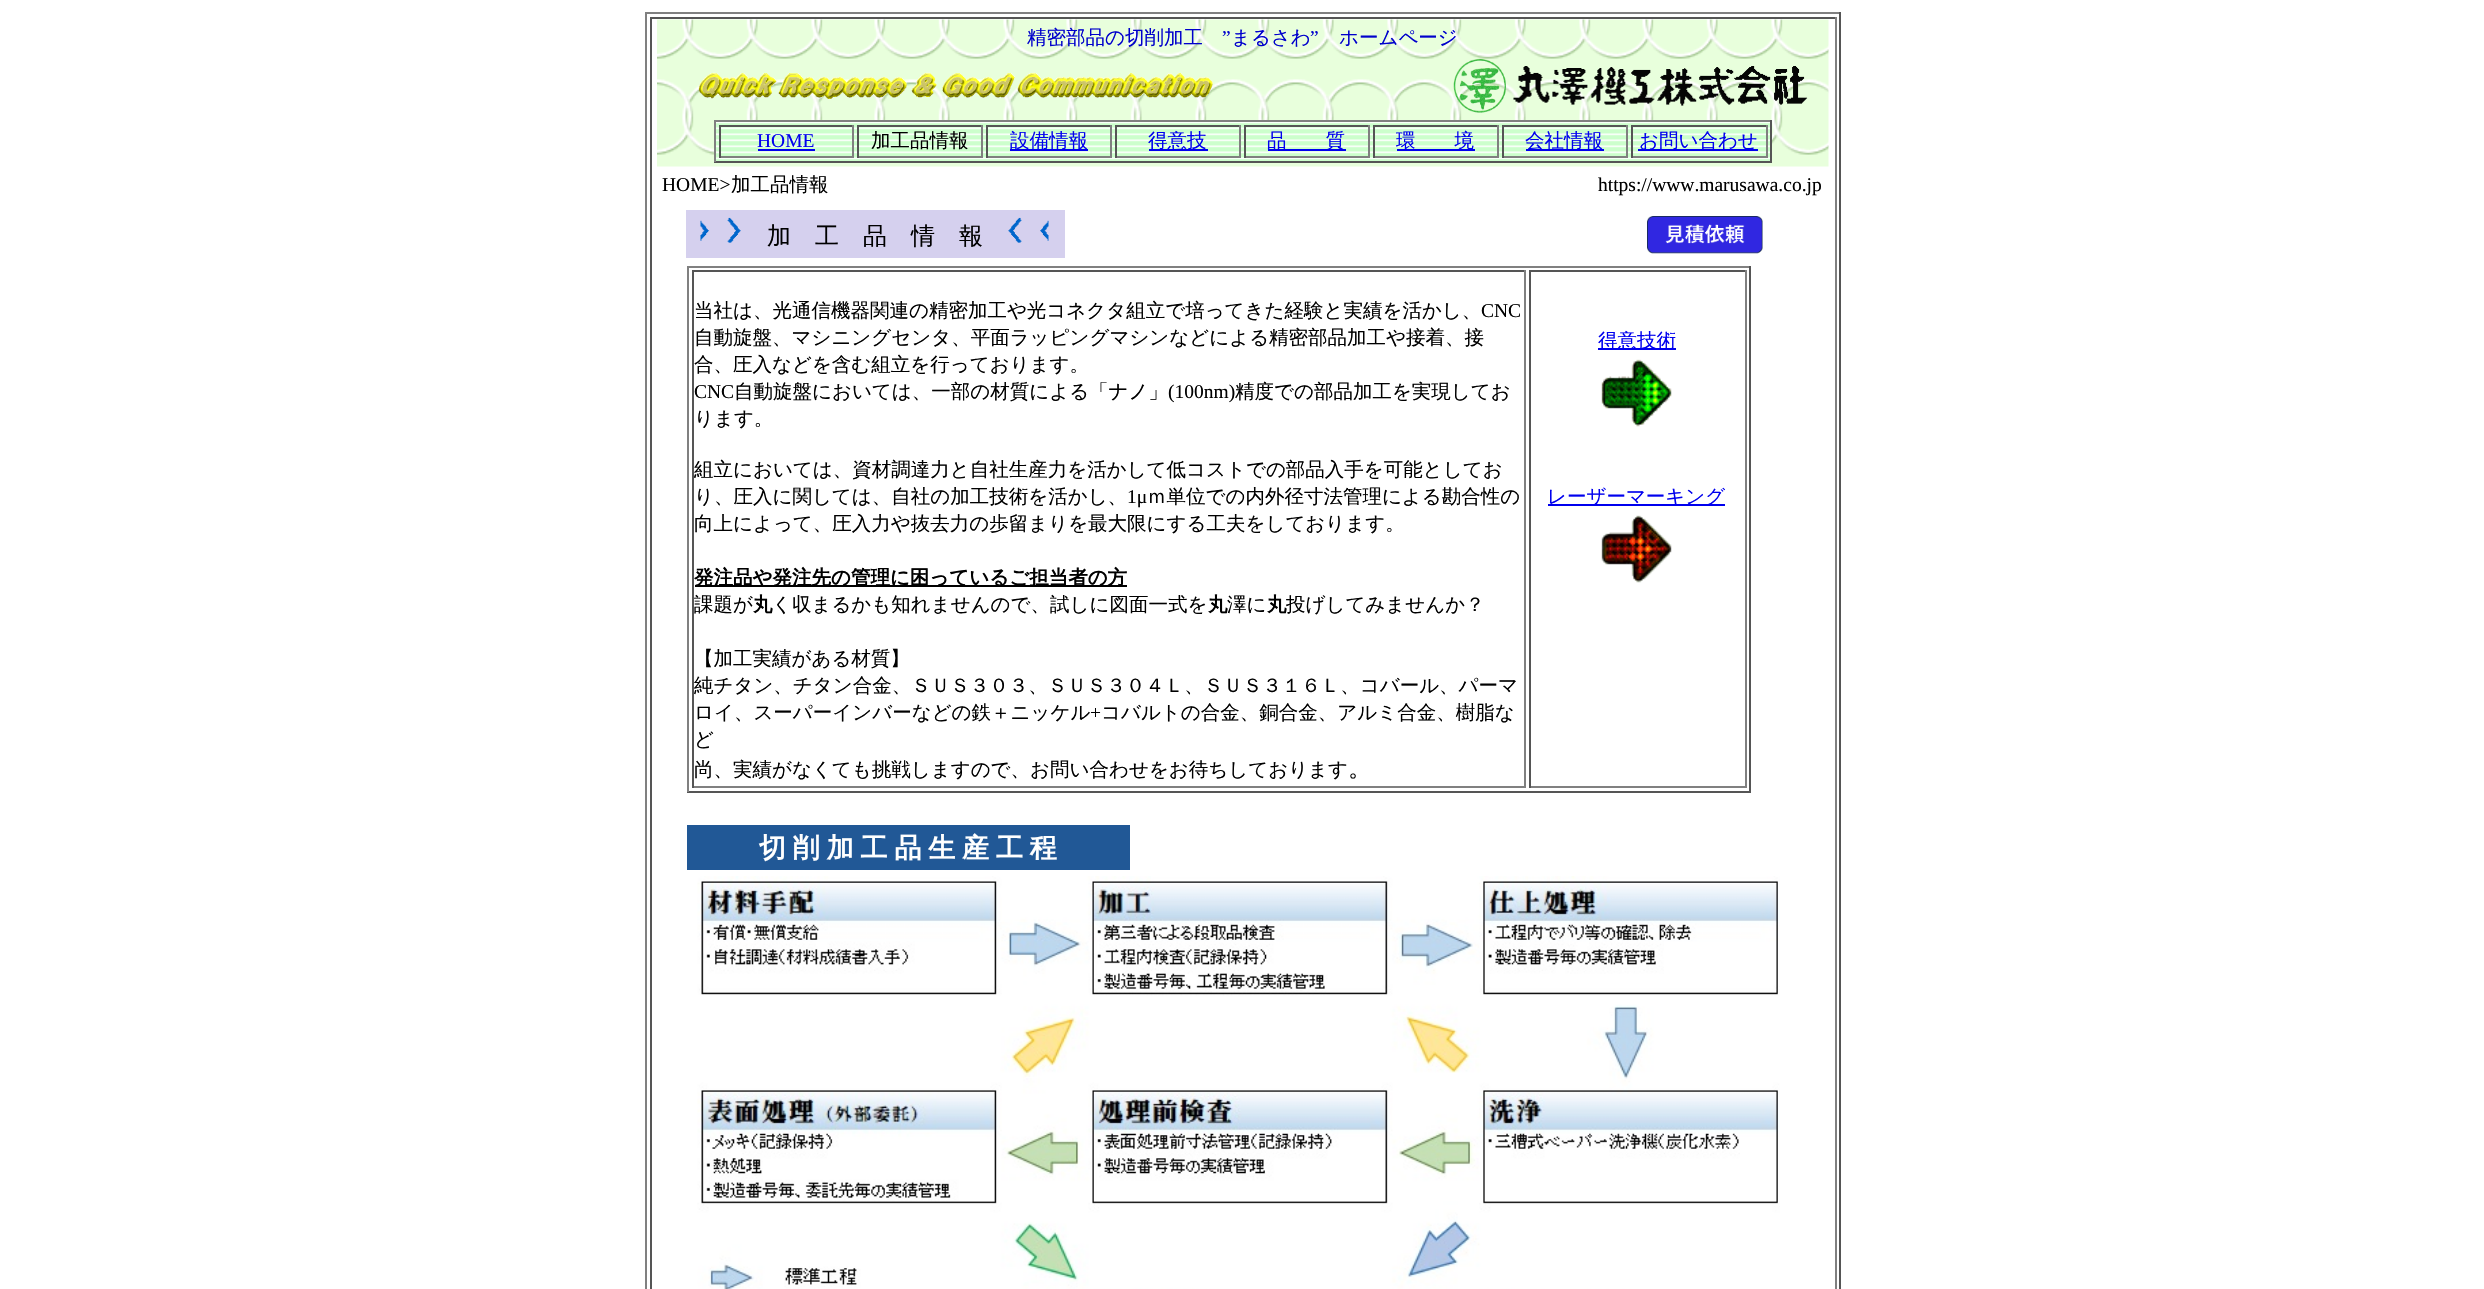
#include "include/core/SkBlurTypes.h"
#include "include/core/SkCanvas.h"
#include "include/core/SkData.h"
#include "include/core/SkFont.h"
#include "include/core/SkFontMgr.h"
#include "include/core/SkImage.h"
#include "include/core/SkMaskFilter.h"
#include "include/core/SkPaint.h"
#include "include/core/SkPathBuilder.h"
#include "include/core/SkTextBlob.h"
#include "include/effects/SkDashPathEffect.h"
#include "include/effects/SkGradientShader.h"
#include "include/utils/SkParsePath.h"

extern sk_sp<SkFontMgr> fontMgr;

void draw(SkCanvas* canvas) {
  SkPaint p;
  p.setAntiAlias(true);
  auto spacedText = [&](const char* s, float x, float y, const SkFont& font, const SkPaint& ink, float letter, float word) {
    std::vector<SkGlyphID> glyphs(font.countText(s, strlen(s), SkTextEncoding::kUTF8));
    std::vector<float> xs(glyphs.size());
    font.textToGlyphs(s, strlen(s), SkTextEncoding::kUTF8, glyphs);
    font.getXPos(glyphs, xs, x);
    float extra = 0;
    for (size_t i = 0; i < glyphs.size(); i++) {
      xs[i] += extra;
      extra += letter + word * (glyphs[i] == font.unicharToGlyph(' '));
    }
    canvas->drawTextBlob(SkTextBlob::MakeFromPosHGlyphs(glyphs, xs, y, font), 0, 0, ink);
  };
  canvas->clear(SK_ColorWHITE);
  p.setColor(SkColorSetRGB(128, 128, 128));
  canvas->drawRect(SkRect::MakeLTRB(645, 12, 1841, 14), p);
  p.setColor(SkColorSetRGB(85, 85, 85));
  canvas->drawRect(SkRect::MakeLTRB(1839, 12, 1841, 1289), p);
  p.setColor(SkColorSetRGB(128, 128, 128));
  canvas->drawRect(SkRect::MakeLTRB(645, 12, 647, 1289), p);
  p.setColor(SkColorSetRGB(85, 85, 85));
  canvas->drawRect(SkRect::MakeLTRB(650, 17, 1836, 19), p);
  p.setColor(SkColorSetRGB(128, 128, 128));
  canvas->drawRect(SkRect::MakeLTRB(1835, 17, 1837, 1289), p);
  p.setColor(SkColorSetRGB(85, 85, 85));
  canvas->drawRect(SkRect::MakeLTRB(650, 17, 652, 1289), p);
  canvas->drawImageRect(SkImages::DeferredFromEncodedData(SkData::MakeFromFileName("images/1.png")), SkRect::MakeLTRB(657, 19, 1829, 167), SkSamplingOptions());
  canvas->drawImageRect(SkImages::DeferredFromEncodedData(SkData::MakeFromFileName("images/2.png")), SkRect::MakeLTRB(698, 72, 1213, 99), SkSamplingOptions());
  canvas->drawImageRect(SkImages::DeferredFromEncodedData(SkData::MakeFromFileName("images/3.png")), SkRect::MakeLTRB(1453, 59, 1507, 113), SkSamplingOptions());
  canvas->drawImageRect(SkImages::DeferredFromEncodedData(SkData::MakeFromFileName("images/4.png")), SkRect::MakeLTRB(1513, 66, 1808, 106), SkSamplingOptions());
  canvas->drawImageRect(SkImages::DeferredFromEncodedData(SkData::MakeFromFileName("images/5.png")), SkRect::MakeLTRB(716, 122, 1770, 161), SkSamplingOptions());
  p.setColor(SkColorSetRGB(128, 128, 128));
  canvas->drawRect(SkRect::MakeLTRB(714, 120, 1772, 122), p);
  p.setColor(SkColorSetRGB(85, 85, 85));
  canvas->drawRect(SkRect::MakeLTRB(1770, 120, 1772, 162), p);
  canvas->drawRect(SkRect::MakeLTRB(714, 161, 1772, 163), p);
  p.setColor(SkColorSetRGB(128, 128, 128));
  canvas->drawRect(SkRect::MakeLTRB(714, 120, 716, 162), p);
  p.setColor(SkColorSetRGB(85, 85, 85));
  canvas->drawRect(SkRect::MakeLTRB(719, 125, 854, 127), p);
  p.setColor(SkColorSetRGB(128, 128, 128));
  canvas->drawRect(SkRect::MakeLTRB(852, 125, 854, 158), p);
  canvas->drawRect(SkRect::MakeLTRB(719, 156, 854, 158), p);
  p.setColor(SkColorSetRGB(85, 85, 85));
  canvas->drawRect(SkRect::MakeLTRB(719, 125, 721, 158), p);
  p.setColor(SkColorSetRGB(0, 0, 238));
  canvas->drawRect(SkRect::MakeLTRB(758, 149, 815, 151), p);
  p.setColor(SkColorSetRGB(85, 85, 85));
  canvas->drawRect(SkRect::MakeLTRB(857, 125, 983, 127), p);
  p.setColor(SkColorSetRGB(128, 128, 128));
  canvas->drawRect(SkRect::MakeLTRB(981, 125, 983, 158), p);
  canvas->drawRect(SkRect::MakeLTRB(857, 156, 983, 158), p);
  p.setColor(SkColorSetRGB(85, 85, 85));
  canvas->drawRect(SkRect::MakeLTRB(857, 125, 859, 158), p);
  canvas->drawRect(SkRect::MakeLTRB(986, 125, 1112, 127), p);
  p.setColor(SkColorSetRGB(128, 128, 128));
  canvas->drawRect(SkRect::MakeLTRB(1110, 125, 1112, 158), p);
  canvas->drawRect(SkRect::MakeLTRB(986, 156, 1112, 158), p);
  p.setColor(SkColorSetRGB(85, 85, 85));
  canvas->drawRect(SkRect::MakeLTRB(986, 125, 988, 158), p);
  p.setColor(SkColorSetRGB(0, 0, 238));
  canvas->drawRect(SkRect::MakeLTRB(1010, 149, 1088, 151), p);
  p.setColor(SkColorSetRGB(85, 85, 85));
  canvas->drawRect(SkRect::MakeLTRB(1115, 125, 1241, 127), p);
  p.setColor(SkColorSetRGB(128, 128, 128));
  canvas->drawRect(SkRect::MakeLTRB(1239, 125, 1241, 158), p);
  canvas->drawRect(SkRect::MakeLTRB(1115, 156, 1241, 158), p);
  p.setColor(SkColorSetRGB(85, 85, 85));
  canvas->drawRect(SkRect::MakeLTRB(1115, 125, 1117, 158), p);
  p.setColor(SkColorSetRGB(0, 0, 238));
  canvas->drawRect(SkRect::MakeLTRB(1149, 149, 1208, 151), p);
  p.setColor(SkColorSetRGB(85, 85, 85));
  canvas->drawRect(SkRect::MakeLTRB(1244, 125, 1370, 127), p);
  p.setColor(SkColorSetRGB(128, 128, 128));
  canvas->drawRect(SkRect::MakeLTRB(1368, 125, 1370, 158), p);
  canvas->drawRect(SkRect::MakeLTRB(1244, 156, 1370, 158), p);
  p.setColor(SkColorSetRGB(85, 85, 85));
  canvas->drawRect(SkRect::MakeLTRB(1244, 125, 1246, 158), p);
  p.setColor(SkColorSetRGB(0, 0, 238));
  canvas->drawRect(SkRect::MakeLTRB(1268, 149, 1346, 151), p);
  p.setColor(SkColorSetRGB(85, 85, 85));
  canvas->drawRect(SkRect::MakeLTRB(1373, 125, 1499, 127), p);
  p.setColor(SkColorSetRGB(128, 128, 128));
  canvas->drawRect(SkRect::MakeLTRB(1497, 125, 1499, 158), p);
  canvas->drawRect(SkRect::MakeLTRB(1373, 156, 1499, 158), p);
  p.setColor(SkColorSetRGB(85, 85, 85));
  canvas->drawRect(SkRect::MakeLTRB(1373, 125, 1375, 158), p);
  p.setColor(SkColorSetRGB(0, 0, 238));
  canvas->drawRect(SkRect::MakeLTRB(1397, 149, 1475, 151), p);
  p.setColor(SkColorSetRGB(85, 85, 85));
  canvas->drawRect(SkRect::MakeLTRB(1502, 125, 1628, 127), p);
  p.setColor(SkColorSetRGB(128, 128, 128));
  canvas->drawRect(SkRect::MakeLTRB(1626, 125, 1628, 158), p);
  canvas->drawRect(SkRect::MakeLTRB(1502, 156, 1628, 158), p);
  p.setColor(SkColorSetRGB(85, 85, 85));
  canvas->drawRect(SkRect::MakeLTRB(1502, 125, 1504, 158), p);
  p.setColor(SkColorSetRGB(0, 0, 238));
  canvas->drawRect(SkRect::MakeLTRB(1526, 149, 1604, 151), p);
  p.setColor(SkColorSetRGB(85, 85, 85));
  canvas->drawRect(SkRect::MakeLTRB(1631, 125, 1767, 127), p);
  p.setColor(SkColorSetRGB(128, 128, 128));
  canvas->drawRect(SkRect::MakeLTRB(1766, 125, 1768, 158), p);
  canvas->drawRect(SkRect::MakeLTRB(1631, 156, 1767, 158), p);
  p.setColor(SkColorSetRGB(85, 85, 85));
  canvas->drawRect(SkRect::MakeLTRB(1631, 125, 1633, 158), p);
  p.setColor(SkColorSetRGB(0, 0, 238));
  canvas->drawRect(SkRect::MakeLTRB(1638, 149, 1758, 151), p);
  p.setColor(SkColorSetRGB(213, 208, 238));
  canvas->drawRect(SkRect::MakeLTRB(686, 210, 1065, 258), p);
  canvas->drawImageRect(SkImages::DeferredFromEncodedData(SkData::MakeFromFileName("images/6.png")), SkRect::MakeLTRB(700, 217, 741, 243), SkSamplingOptions());
  canvas->drawImageRect(SkImages::DeferredFromEncodedData(SkData::MakeFromFileName("images/7.png")), SkRect::MakeLTRB(1008, 217, 1049, 243), SkSamplingOptions());
  canvas->drawImageRect(SkImages::DeferredFromEncodedData(SkData::MakeFromFileName("images/8.png")), SkRect::MakeLTRB(1647, 216, 1763, 254), SkSamplingOptions());
  p.setColor(SkColorSetRGB(128, 128, 128));
  canvas->drawRect(SkRect::MakeLTRB(687, 266, 1751, 268), p);
  p.setColor(SkColorSetRGB(85, 85, 85));
  canvas->drawRect(SkRect::MakeLTRB(1749, 266, 1751, 792), p);
  canvas->drawRect(SkRect::MakeLTRB(687, 791, 1751, 793), p);
  p.setColor(SkColorSetRGB(128, 128, 128));
  canvas->drawRect(SkRect::MakeLTRB(687, 266, 689, 792), p);
  p.setColor(SkColorSetRGB(85, 85, 85));
  canvas->drawRect(SkRect::MakeLTRB(692, 270, 1526, 272), p);
  p.setColor(SkColorSetRGB(128, 128, 128));
  canvas->drawRect(SkRect::MakeLTRB(1524, 270, 1526, 788), p);
  canvas->drawRect(SkRect::MakeLTRB(692, 786, 1526, 788), p);
  p.setColor(SkColorSetRGB(85, 85, 85));
  canvas->drawRect(SkRect::MakeLTRB(692, 270, 694, 788), p);
  p.setColor(SK_ColorBLACK);
  canvas->drawRect(SkRect::MakeLTRB(695, 585, 1127, 587), p);
  p.setColor(SkColorSetRGB(85, 85, 85));
  canvas->drawRect(SkRect::MakeLTRB(1529, 270, 1746, 272), p);
  p.setColor(SkColorSetRGB(128, 128, 128));
  canvas->drawRect(SkRect::MakeLTRB(1745, 270, 1747, 788), p);
  canvas->drawRect(SkRect::MakeLTRB(1529, 786, 1746, 788), p);
  p.setColor(SkColorSetRGB(85, 85, 85));
  canvas->drawRect(SkRect::MakeLTRB(1529, 270, 1531, 788), p);
  p.setColor(SkColorSetRGB(0, 0, 238));
  canvas->drawRect(SkRect::MakeLTRB(1598, 348, 1676, 350), p);
  canvas->drawImageRect(SkImages::DeferredFromEncodedData(SkData::MakeFromFileName("images/9.png")), SkRect::MakeLTRB(1601, 359, 1672, 427), SkSamplingOptions());
  canvas->drawRect(SkRect::MakeLTRB(1548, 504, 1725, 506), p);
  canvas->drawImageRect(SkImages::DeferredFromEncodedData(SkData::MakeFromFileName("images/10.png")), SkRect::MakeLTRB(1601, 515, 1672, 583), SkSamplingOptions());
  p.setColor(SkColorSetRGB(33, 88, 150));
  canvas->drawRect(SkRect::MakeLTRB(687, 825, 1130, 870), p);
  canvas->drawImageRect(SkImages::DeferredFromEncodedData(SkData::MakeFromFileName("images/11.png")), SkRect::MakeLTRB(697, 876, 1780, 1289), SkSamplingOptions());
  SkFont font1(fontMgr->matchFamilyStyle("WenQuanYi Zen Hei", SkFontStyle(500, SkFontStyle::kNormal_Width, SkFontStyle::kUpright_Slant)), 19.5f);
  font1.setSubpixel(true);
  p.setColor(SkColorSetRGB(0, 0, 204));
  canvas->drawString("精密部品の切削加工", 1027, 44, font1, p);
  SkFont font2(fontMgr->matchFamilyStyle("Liberation Serif", SkFontStyle::Normal()), 19.5f);
  font2.setSubpixel(true);
  canvas->drawString("”", 1222, 44, font2, p);
  canvas->drawString("まるさわ", 1231, 44, font1, p);
  canvas->drawString("”", 1310, 44, font2, p);
  canvas->drawString("ホームページ", 1339, 44, font1, p);
  p.setColor(SkColorSetRGB(0, 0, 238));
  canvas->drawString("HOME", 757, 147, font2, p);
  p.setColor(SK_ColorBLACK);
  canvas->drawString("加工品情報", 871, 147, font1, p);
  p.setColor(SkColorSetRGB(0, 0, 238));
  canvas->drawString("設備情報", 1010, 147, font1, p);
  canvas->drawString("得意技", 1148, 147, font1, p);
  canvas->drawString("品　　質", 1267, 147, font1, p);
  canvas->drawString("環　　境", 1396, 147, font1, p);
  canvas->drawString("会社情報", 1525, 147, font1, p);
  canvas->drawString("お問い合わせ", 1639, 147, font1, p);
  p.setColor(SK_ColorBLACK);
  canvas->drawString("HOME>", 662, 191, font2, p);
  canvas->drawString("加工品情報", 731, 191, font1, p);
  canvas->drawString("https://www.marusawa.co.jp", 1598, 191, font2, p);
  SkFont font3(fontMgr->matchFamilyStyle("WenQuanYi Zen Hei", SkFontStyle(500, SkFontStyle::kNormal_Width, SkFontStyle::kUpright_Slant)), 24);
  font3.setSubpixel(true);
  canvas->drawString("加　工　品　情　報", 767, 244, font3, p);
  canvas->drawString("当社は、光通信機器関連の精密加工や光コネクタ組立で培ってきた経験と実績を活かし、", 694, 317, font1, p);
  canvas->drawString("CNC", 1481, 317, font2, p);
  canvas->drawString("自動旋盤、マシニングセンタ、平面ラッピングマシンなどによる精密部品加工や接着、接", 694, 344, font1, p);
  canvas->drawString("合、圧入などを含む組立を行っております。", 694, 371, font1, p);
  canvas->drawString("CNC", 694, 398, font2, p);
  canvas->drawString("自動旋盤においては、一部の材質による「ナノ」", 734, 398, font1, p);
  canvas->drawString("(100nm)", 1168, 398, font2, p);
  canvas->drawString("精度での部品加工を実現してお", 1235, 398, font1, p);
  canvas->drawString("ります。", 694, 425, font1, p);
  canvas->drawString("組立においては、資材調達力と自社生産力を活かして低コストでの部品入手を可能としてお", 694, 476, font1, p);
  canvas->drawString("り、圧入に関しては、自社の加工技術を活かし、", 694, 503, font1, p);
  canvas->drawString("1μ", 1127, 503, font2, p);
  canvas->drawString("ｍ単位での内外径寸法管理による勘合性の", 1147, 503, font1, p);
  canvas->drawString("向上によって、圧入力や抜去力の歩留まりを最大限にする工夫をしております。", 694, 530, font1, p);
  SkFont font4(fontMgr->matchFamilyStyle("WenQuanYi Zen Hei", SkFontStyle::Bold()), 19.5f);
  font4.setSubpixel(true);
  canvas->drawString("発注品や発注先の管理に困っているご担当者の方", 694, 584, font4, p);
  canvas->drawString("課題が", 694, 611, font1, p);
  canvas->drawString("丸", 753, 611, font4, p);
  canvas->drawString("く収まるかも知れませんので、試しに図面一式を", 772, 611, font1, p);
  canvas->drawString("丸", 1208, 611, font4, p);
  canvas->drawString("澤に", 1227, 611, font1, p);
  canvas->drawString("丸", 1267, 611, font4, p);
  canvas->drawString("投げしてみませんか？", 1286, 611, font1, p);
  canvas->drawString("【加工実績がある材質】", 694, 665, font1, p);
  canvas->drawString("純チタン、チタン合金、ＳＵＳ３０３、ＳＵＳ３０４Ｌ、ＳＵＳ３１６Ｌ、コバール、パーマ", 694, 692, font1, p);
  canvas->drawString("ロイ、スーパーインバーなどの鉄＋ニッケル", 694, 719, font1, p);
  canvas->drawString("+", 1090, 719, font2, p);
  canvas->drawString("コバルトの合金、銅合金、アルミ合金、樹脂な", 1101, 719, font1, p);
  canvas->drawString("ど", 694, 746, font1, p);
  canvas->drawString("尚、実績がなくても挑戦しますので、お問い合わせをお待ちしております", 694, 776, font1, p);
  canvas->drawString("。", 1348, 776, font3, p);
  p.setColor(SkColorSetRGB(0, 0, 238));
  canvas->drawString("得意技術", 1598, 347, font1, p);
  canvas->drawString("レーザーマーキング", 1547, 503, font1, p);
  SkFont font5(fontMgr->matchFamilyStyle("WenQuanYi Zen Hei", SkFontStyle::Bold()), 27);
  font5.setSubpixel(true);
  p.setColor(SK_ColorWHITE);
  spacedText("切 削 加 工 品 生 産 工 程", 759, 857, font5, p, 0, -1.25f);
}
